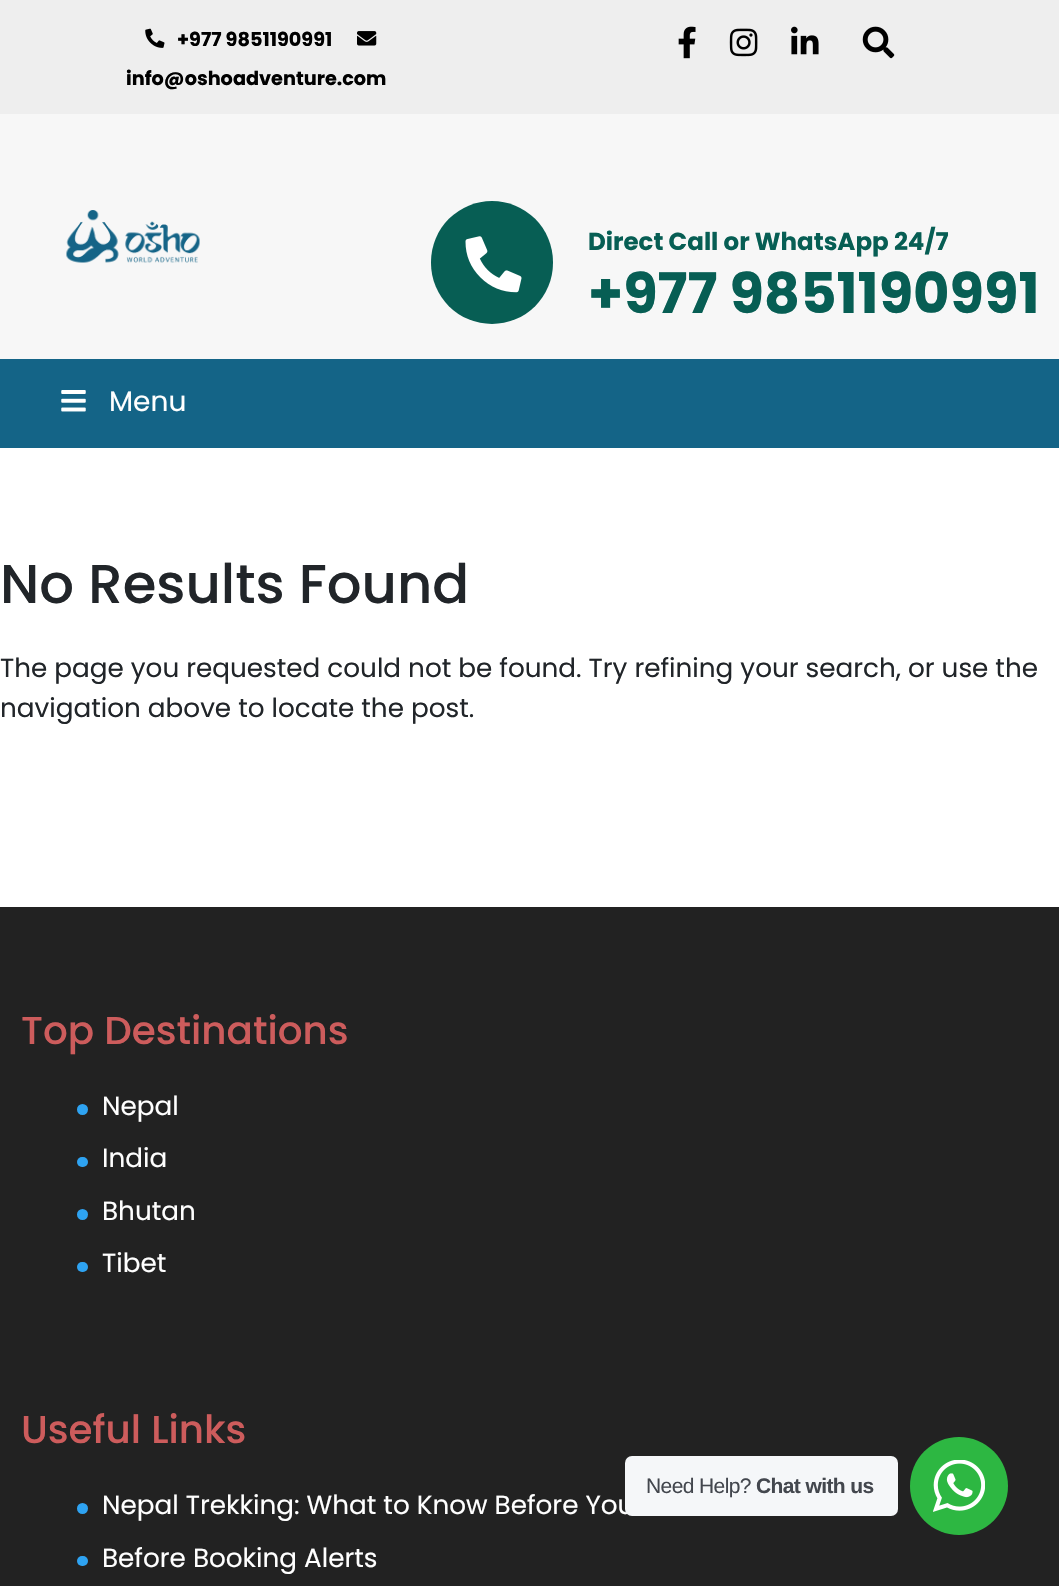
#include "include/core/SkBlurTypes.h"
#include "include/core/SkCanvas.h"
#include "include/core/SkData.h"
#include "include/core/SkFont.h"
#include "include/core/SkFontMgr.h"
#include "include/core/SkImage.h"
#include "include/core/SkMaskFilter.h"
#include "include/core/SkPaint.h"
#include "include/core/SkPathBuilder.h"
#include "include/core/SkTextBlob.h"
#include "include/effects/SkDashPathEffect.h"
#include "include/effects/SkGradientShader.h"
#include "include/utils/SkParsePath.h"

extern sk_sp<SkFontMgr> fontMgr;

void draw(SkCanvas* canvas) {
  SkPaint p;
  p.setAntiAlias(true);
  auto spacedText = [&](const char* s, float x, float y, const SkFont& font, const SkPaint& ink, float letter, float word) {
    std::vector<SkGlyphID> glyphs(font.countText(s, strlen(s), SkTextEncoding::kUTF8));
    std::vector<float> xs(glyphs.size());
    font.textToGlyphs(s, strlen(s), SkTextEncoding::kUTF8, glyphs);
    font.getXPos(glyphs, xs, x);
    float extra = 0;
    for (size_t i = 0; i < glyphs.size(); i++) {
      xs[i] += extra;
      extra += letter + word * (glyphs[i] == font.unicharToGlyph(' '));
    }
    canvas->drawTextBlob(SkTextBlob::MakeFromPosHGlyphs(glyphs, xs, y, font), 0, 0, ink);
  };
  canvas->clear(SkColorSetRGB(247, 247, 247));
  p.setColor(SkColorSetRGB(238, 238, 238));
  canvas->drawRect(SkRect::MakeLTRB(0, 0, 1059, 114), p);
  canvas->drawImageRect(SkImages::DeferredFromEncodedData(SkData::MakeFromFileName("images/1.png")), SkRect::MakeLTRB(145, 28, 165, 48), SkSamplingOptions());
  canvas->drawImageRect(SkImages::DeferredFromEncodedData(SkData::MakeFromFileName("images/2.png")), SkRect::MakeLTRB(357, 31, 377, 46), SkSamplingOptions());
  canvas->drawImageRect(SkImages::DeferredFromEncodedData(SkData::MakeFromFileName("images/3.png")), SkRect::MakeLTRB(678, 26, 696, 59), SkSamplingOptions());
  canvas->drawImageRect(SkImages::DeferredFromEncodedData(SkData::MakeFromFileName("images/4.png")), SkRect::MakeLTRB(729, 28, 758, 57), SkSamplingOptions());
  canvas->drawImageRect(SkImages::DeferredFromEncodedData(SkData::MakeFromFileName("images/5.png")), SkRect::MakeLTRB(791, 26, 819, 55), SkSamplingOptions());
  canvas->drawImageRect(SkImages::DeferredFromEncodedData(SkData::MakeFromFileName("images/6.png")), SkRect::MakeLTRB(862, 26, 895, 59), SkSamplingOptions());
  canvas->drawImageRect(SkImages::DeferredFromEncodedData(SkData::MakeFromFileName("images/7.png")), SkRect::MakeLTRB(66, 210, 200, 263), SkSamplingOptions());
  p.setColor(SkColorSetRGB(7, 94, 84));
  canvas->drawRoundRect(SkRect::MakeLTRB(431, 201, 553, 324), 61, 61, p);
  canvas->drawImageRect(SkImages::DeferredFromEncodedData(SkData::MakeFromFileName("images/8.png")), SkRect::MakeLTRB(465, 236, 522, 293), SkSamplingOptions());
  p.setColor(SkColorSetRGB(20, 100, 135));
  canvas->drawRect(SkRect::MakeLTRB(0, 359, 1059, 448), p);
  canvas->drawImageRect(SkImages::DeferredFromEncodedData(SkData::MakeFromFileName("images/9.png")), SkRect::MakeLTRB(61, 390, 86, 412), SkSamplingOptions());
  p.setColor(SK_ColorWHITE);
  canvas->drawRect(SkRect::MakeLTRB(0, 448, 1059, 907), p);
  p.setColor(SkColorSetRGB(34, 34, 34));
  canvas->drawRect(SkRect::MakeLTRB(0, 907, 1059, 1586), p);
  p.setColor(SkColorSetRGB(46, 163, 242));
  canvas->drawCircle(82.5f, 1109.5f, 5.5f, p);
  canvas->drawRoundRect(SkRect::MakeLTRB(77, 1157, 88, 1167), 5, 5, p);
  canvas->drawCircle(82.5f, 1214.5f, 5.5f, p);
  canvas->drawRoundRect(SkRect::MakeLTRB(77, 1262, 88, 1272), 5, 5, p);
  canvas->drawCircle(82.5f, 1508.5f, 5.5f, p);
  canvas->drawRoundRect(SkRect::MakeLTRB(77, 1556, 88, 1566), 5, 5, p);
  p.setColor(SkColorSetRGB(45, 183, 66));
  canvas->drawCircle(959, 1486, 49, p);
  canvas->drawImageRect(SkImages::DeferredFromEncodedData(SkData::MakeFromFileName("images/10.png")), SkRect::MakeLTRB(933, 1460, 985, 1512), SkSamplingOptions());
  SkFont font1(fontMgr->matchFamilyStyle("Poppins", SkFontStyle::Bold()), 19.25f);
  font1.setSubpixel(true);
  p.setColor(SK_ColorBLACK);
  canvas->drawString("+977 9851190991", 177, 46, font1, p);
  canvas->drawString("info@oshoadventure.com", 126, 85, font1, p);
  SkFont font2(fontMgr->matchFamilyStyle("Poppins", SkFontStyle::Bold()), 24.5f);
  font2.setSubpixel(true);
  p.setColor(SkColorSetRGB(7, 94, 84));
  canvas->drawString("Direct Call or WhatsApp 24/7", 588, 250, font2, p);
  SkFont font3(fontMgr->matchFamilyStyle("Poppins", SkFontStyle::Bold()), 56);
  font3.setSubpixel(true);
  canvas->drawString("+977 9851190991", 588, 313, font3, p);
  SkFont font4(fontMgr->matchFamilyStyle("Poppins", SkFontStyle::Normal()), 28);
  font4.setSubpixel(true);
  p.setColor(SK_ColorWHITE);
  canvas->drawString("Menu", 109, 411, font4, p);
  SkFont font5(fontMgr->matchFamilyStyle("Poppins", SkFontStyle(500, SkFontStyle::kNormal_Width, SkFontStyle::kUpright_Slant)), 54.5f);
  font5.setSubpixel(true);
  p.setColor(SkColorSetRGB(33, 37, 41));
  canvas->drawString("No Results Found", 0, 603, font5, p);
  SkFont font6(fontMgr->matchFamilyStyle("Poppins", SkFontStyle::Normal()), 26.25f);
  font6.setSubpixel(true);
  canvas->drawString("The page you requested could not be found. Try refining your search, or use the", 0, 677, font6, p);
  canvas->drawString("navigation above to locate the post.", 0, 717, font6, p);
  SkFont font7(fontMgr->matchFamilyStyle("Poppins", SkFontStyle(500, SkFontStyle::kNormal_Width, SkFontStyle::kUpright_Slant)), 38.9f);
  font7.setSubpixel(true);
  p.setColor(SkColorSetRGB(205, 92, 92));
  canvas->drawString("Top Destinations", 21, 1044, font7, p);
  p.setColor(SK_ColorWHITE);
  canvas->drawString("Nepal", 102, 1115, font6, p);
  canvas->drawString("India", 102, 1167, font6, p);
  canvas->drawString("Bhutan", 102, 1220, font6, p);
  canvas->drawString("Tibet", 102, 1272, font6, p);
  p.setColor(SkColorSetRGB(205, 92, 92));
  canvas->drawString("Useful Links", 21, 1443, font7, p);
  p.setColor(SK_ColorWHITE);
  canvas->drawString("Nepal Trekking: What to Know Before You", 102, 1514, font6, p);
  canvas->drawString("Before Booking Alerts", 102, 1567, font6, p);
  p.setColor(SkColorSetRGB(245, 247, 249));
  canvas->drawRoundRect(SkRect::MakeLTRB(625, 1456, 898, 1516), 7, 7, p);
  SkFont font8(fontMgr->matchFamilyStyle("Liberation Sans", SkFontStyle::Normal()), 21);
  font8.setSubpixel(true);
  p.setColor(SkColorSetRGB(67, 71, 78));
  spacedText("Need Help?", 646, 1493, font8, p, -0.6f, 0);
  SkFont font9(fontMgr->matchFamilyStyle("Liberation Sans", SkFontStyle::Bold()), 21);
  font9.setSubpixel(true);
  spacedText("Chat with us", 756, 1493, font9, p, -0.6f, 0);
}
